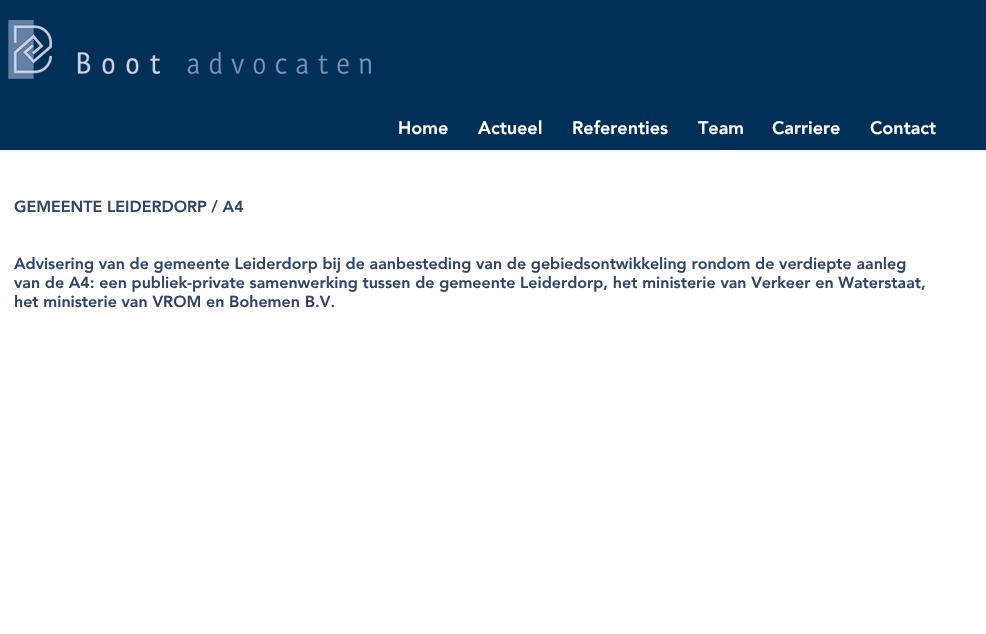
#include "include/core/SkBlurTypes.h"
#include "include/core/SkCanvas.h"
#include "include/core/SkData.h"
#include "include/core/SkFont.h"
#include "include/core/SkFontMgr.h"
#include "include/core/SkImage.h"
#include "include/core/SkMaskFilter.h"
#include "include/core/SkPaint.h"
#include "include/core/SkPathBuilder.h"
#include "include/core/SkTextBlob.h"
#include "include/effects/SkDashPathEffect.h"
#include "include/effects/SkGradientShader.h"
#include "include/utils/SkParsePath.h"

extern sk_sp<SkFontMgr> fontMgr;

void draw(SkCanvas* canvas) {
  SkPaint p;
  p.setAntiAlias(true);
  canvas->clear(SK_ColorWHITE);
  p.setColor(SkColorSetRGB(0, 48, 87));
  canvas->drawRect(SkRect::MakeLTRB(0, 0, 986, 150), p);
  canvas->drawImageRect(SkImages::DeferredFromEncodedData(SkData::MakeFromFileName("images/1.png")), SkRect::MakeLTRB(8, 20, 371, 79), SkSamplingOptions());
  SkFont font1(fontMgr->matchFamilyStyle("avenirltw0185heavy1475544", SkFontStyle(900, SkFontStyle::kNormal_Width, SkFontStyle::kUpright_Slant)), 18);
  font1.setSubpixel(true);
  p.setColor(SK_ColorWHITE);
  canvas->drawString("Home", 398, 134, font1, p);
  canvas->drawString("Actueel", 478, 134, font1, p);
  canvas->drawString("Referenties", 572, 134, font1, p);
  canvas->drawString("Team", 698, 134, font1, p);
  canvas->drawString("Carriere", 772, 134, font1, p);
  canvas->drawString("Contact", 870, 134, font1, p);
  SkFont font2(fontMgr->matchFamilyStyle("avenirltw0185heavy1475544", SkFontStyle(900, SkFontStyle::kNormal_Width, SkFontStyle::kUpright_Slant)), 16);
  font2.setSubpixel(true);
  p.setColor(SkColorSetRGB(47, 69, 110));
  canvas->drawString("GEMEENTE LEIDERDORP / A4", 14, 212, font2, p);
  canvas->drawString("Advisering van de gemeente Leiderdorp bij de aanbesteding van de gebiedsontwikkeling rondom de verdiepte aanleg", 14, 269, font2, p);
  canvas->drawString("van de A4: een publiek-private samenwerking tussen de gemeente Leiderdorp, het ministerie van Verkeer en Waterstaat,", 14, 288, font2, p);
  canvas->drawString("het ministerie van VROM en Bohemen B.V.", 14, 307, font2, p);
}
